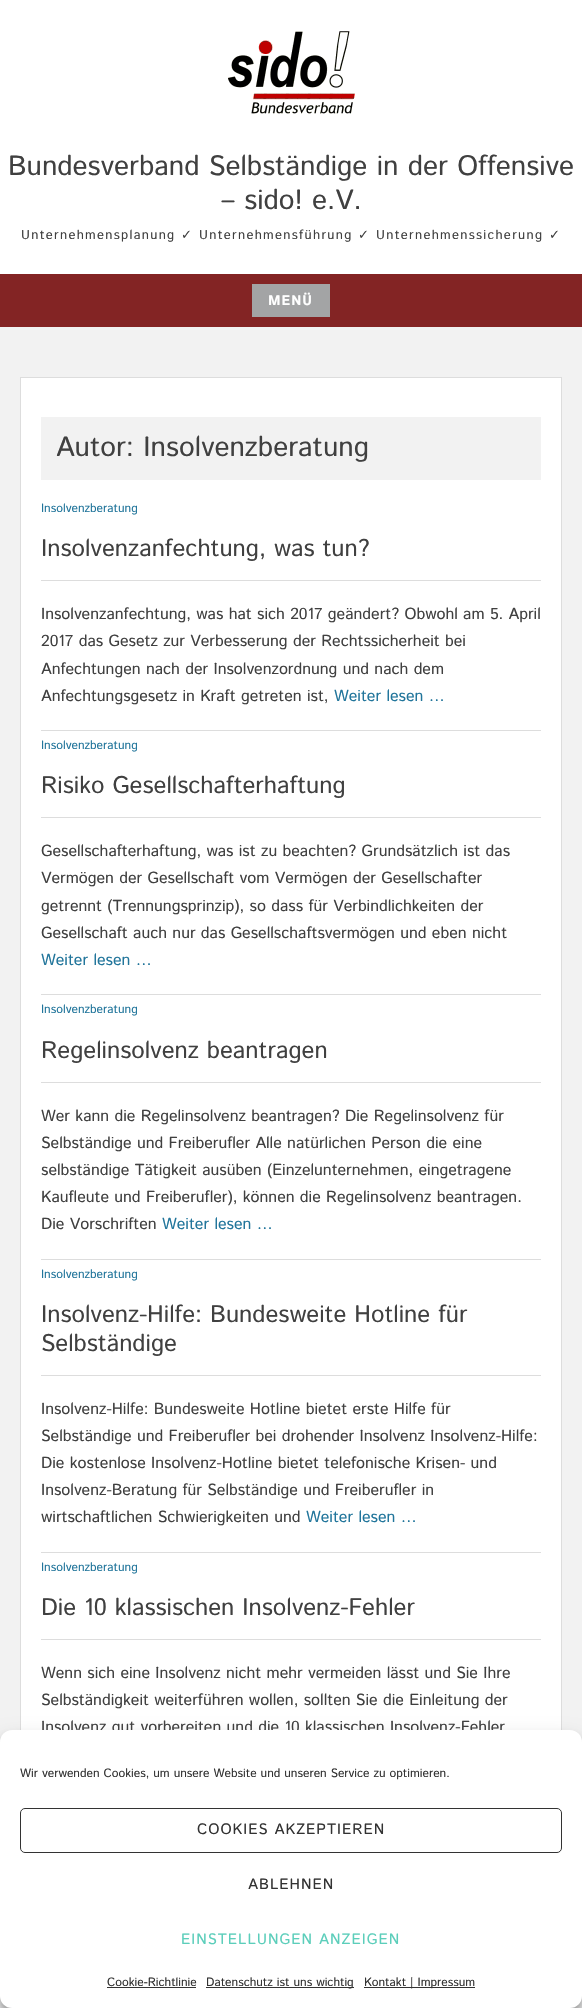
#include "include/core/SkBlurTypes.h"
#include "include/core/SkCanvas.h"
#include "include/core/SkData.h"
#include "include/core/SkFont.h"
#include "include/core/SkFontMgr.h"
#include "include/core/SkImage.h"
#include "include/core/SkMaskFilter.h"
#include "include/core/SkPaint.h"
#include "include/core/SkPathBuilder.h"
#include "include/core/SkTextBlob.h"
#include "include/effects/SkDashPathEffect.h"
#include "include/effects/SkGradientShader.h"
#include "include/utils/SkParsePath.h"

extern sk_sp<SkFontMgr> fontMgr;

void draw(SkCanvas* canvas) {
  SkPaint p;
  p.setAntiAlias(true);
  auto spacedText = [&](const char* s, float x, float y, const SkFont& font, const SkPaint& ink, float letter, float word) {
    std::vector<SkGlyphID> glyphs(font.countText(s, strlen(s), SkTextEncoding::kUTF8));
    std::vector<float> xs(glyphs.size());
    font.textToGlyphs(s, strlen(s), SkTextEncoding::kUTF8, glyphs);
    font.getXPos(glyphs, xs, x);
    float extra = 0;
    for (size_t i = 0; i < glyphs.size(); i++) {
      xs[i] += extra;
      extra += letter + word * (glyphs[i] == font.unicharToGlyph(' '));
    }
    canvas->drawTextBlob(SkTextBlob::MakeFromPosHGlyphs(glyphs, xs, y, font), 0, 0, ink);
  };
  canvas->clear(SkColorSetRGB(242, 242, 242));
  p.setColor(SK_ColorWHITE);
  canvas->drawRect(SkRect::MakeLTRB(0, 0, 582, 274), p);
  canvas->drawImageRect(SkImages::DeferredFromEncodedData(SkData::MakeFromFileName("images/1.png")), SkRect::MakeLTRB(228, 31, 355, 114), SkSamplingOptions());
  p.setColor(SkColorSetRGB(131, 36, 36));
  canvas->drawRect(SkRect::MakeLTRB(0, 274, 582, 327), p);
  p.setColor(SkColorSetRGB(163, 164, 165));
  canvas->drawRect(SkRect::MakeLTRB(252, 284, 330, 317), p);
  p.setColor(SK_ColorWHITE);
  canvas->drawRect(SkRect::MakeLTRB(21, 378, 561, 1730), p);
  p.setStyle(SkPaint::kStroke_Style);
  p.setStrokeWidth(1);
  p.setColor(SkColorSetRGB(221, 221, 221));
  canvas->drawRect(SkRect::MakeLTRB(20.5f, 377.5f, 561.5f, 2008.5f), p);
  p.setStyle(SkPaint::kFill_Style);
  p.setColor(SkColorSetRGB(242, 242, 242));
  canvas->drawRect(SkRect::MakeLTRB(41, 417, 541, 480), p);
  p.setColor(SkColorSetRGB(221, 221, 221));
  canvas->drawRect(SkRect::MakeLTRB(41, 580, 541, 581), p);
  canvas->drawRect(SkRect::MakeLTRB(41, 730, 541, 731), p);
  canvas->drawRect(SkRect::MakeLTRB(41, 817, 541, 818), p);
  canvas->drawRect(SkRect::MakeLTRB(41, 994, 541, 995), p);
  canvas->drawRect(SkRect::MakeLTRB(41, 1082, 541, 1083), p);
  canvas->drawRect(SkRect::MakeLTRB(41, 1259, 541, 1260), p);
  canvas->drawRect(SkRect::MakeLTRB(41, 1375, 541, 1376), p);
  canvas->drawRect(SkRect::MakeLTRB(41, 1552, 541, 1553), p);
  canvas->drawRect(SkRect::MakeLTRB(41, 1639, 541, 1640), p);
  p.setColor(SkColorSetARGB(59, 0, 0, 0));
  p.setMaskFilter(SkMaskFilter::MakeBlur(kNormal_SkBlurStyle, 3));
  canvas->drawRoundRect(SkRect::MakeLTRB(0, 1736, 582, 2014), 12, 12, p);
  p.setMaskFilter(nullptr);
  p.setColor(SkColorSetARGB(48, 0, 0, 0));
  p.setMaskFilter(SkMaskFilter::MakeBlur(kNormal_SkBlurStyle, 10));
  canvas->drawRoundRect(SkRect::MakeLTRB(0, 1740, 582, 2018), 12, 12, p);
  p.setMaskFilter(nullptr);
  SkFont font1(fontMgr->matchFamilyStyle("Istok Web", SkFontStyle::Normal()), 28);
  font1.setSubpixel(true);
  p.setColor(SkColorSetRGB(64, 64, 64));
  canvas->drawString("Bundesverband Selbständige in der Offensive", 8, 175, font1, p);
  canvas->drawString("– sido! e.V.", 221, 209, font1, p);
  SkFont font2(fontMgr->matchFamilyStyle("Istok Web", SkFontStyle::Normal()), 13);
  font2.setSubpixel(true);
  spacedText("Unternehmensplanung", 21, 239, font2, p, 1.3f, 0);
  SkFont font3(fontMgr->matchFamilyStyle("DejaVu Sans", SkFontStyle::Normal()), 13);
  font3.setSubpixel(true);
  spacedText("✓", 181, 239, font3, p, 1.3f, 0);
  spacedText("Unternehmensführung", 199, 239, font2, p, 1.3f, 0);
  spacedText("✓", 358, 239, font3, p, 1.3f, 0);
  spacedText("Unternehmenssicherung", 376, 239, font2, p, 1.3f, 0);
  spacedText("✓", 549, 239, font3, p, 1.3f, 0);
  SkFont font4(fontMgr->matchFamilyStyle("Istok Web", SkFontStyle::Bold()), 14);
  font4.setSubpixel(true);
  p.setColor(SK_ColorWHITE);
  spacedText("MENÜ", 268, 305, font4, p, 1, 0);
  p.setColor(SkColorSetRGB(64, 64, 64));
  canvas->drawString("Autor: Insolvenzberatung", 56, 456, font1, p);
  SkFont font5(fontMgr->matchFamilyStyle("Istok Web", SkFontStyle::Normal()), 12);
  font5.setSubpixel(true);
  p.setColor(SkColorSetRGB(33, 117, 155));
  canvas->drawString("Insolvenzberatung", 41, 512, font5, p);
  SkFont font6(fontMgr->matchFamilyStyle("Istok Web", SkFontStyle::Normal()), 24);
  font6.setSubpixel(true);
  p.setColor(SkColorSetRGB(64, 64, 64));
  canvas->drawString("Insolvenzanfechtung, was tun?", 41, 556, font6, p);
  SkFont font7(fontMgr->matchFamilyStyle("Istok Web", SkFontStyle::Normal()), 16);
  font7.setSubpixel(true);
  canvas->drawString("Insolvenzanfechtung, was hat sich 2017 geändert? Obwohl am 5. April", 41, 619, font7, p);
  canvas->drawString("2017 das Gesetz zur Verbesserung der Rechtssicherheit bei", 41, 646, font7, p);
  canvas->drawString("Anfechtungen nach der Insolvenzordnung und nach dem", 41, 674, font7, p);
  canvas->drawString("Anfechtungsgesetz in Kraft getreten ist,", 41, 701, font7, p);
  p.setColor(SkColorSetRGB(33, 117, 155));
  canvas->drawString("Weiter lesen …", 334, 701, font7, p);
  canvas->drawString("Insolvenzberatung", 41, 749, font5, p);
  p.setColor(SkColorSetRGB(64, 64, 64));
  canvas->drawString("Risiko Gesellschafterhaftung", 41, 793, font6, p);
  canvas->drawString("Gesellschafterhaftung, was ist zu beachten? Grundsätzlich ist das", 41, 856, font7, p);
  canvas->drawString("Vermögen der Gesellschaft vom Vermögen der Gesellschafter", 41, 883, font7, p);
  canvas->drawString("getrennt (Trennungsprinzip), so dass für Verbindlichkeiten der", 41, 911, font7, p);
  canvas->drawString("Gesellschaft auch nur das Gesellschaftsvermögen und eben nicht", 41, 938, font7, p);
  p.setColor(SkColorSetRGB(33, 117, 155));
  canvas->drawString("Weiter lesen …", 41, 965, font7, p);
  canvas->drawString("Insolvenzberatung", 41, 1013, font5, p);
  p.setColor(SkColorSetRGB(64, 64, 64));
  canvas->drawString("Regelinsolvenz beantragen", 41, 1058, font6, p);
  canvas->drawString("Wer kann die Regelinsolvenz beantragen? Die Regelinsolvenz für", 41, 1121, font7, p);
  canvas->drawString("Selbständige und Freiberufler Alle natürlichen Person die eine", 41, 1148, font7, p);
  canvas->drawString("selbständige Tätigkeit ausüben (Einzelunternehmen, eingetragene", 41, 1175, font7, p);
  canvas->drawString("Kaufleute und Freiberufler), können die Regelinsolvenz beantragen.", 41, 1202, font7, p);
  canvas->drawString("Die Vorschriften", 41, 1229, font7, p);
  p.setColor(SkColorSetRGB(33, 117, 155));
  canvas->drawString("Weiter lesen …", 162, 1229, font7, p);
  canvas->drawString("Insolvenzberatung", 41, 1278, font5, p);
  p.setColor(SkColorSetRGB(64, 64, 64));
  canvas->drawString("Insolvenz-Hilfe: Bundesweite Hotline für", 41, 1322, font6, p);
  canvas->drawString("Selbständige", 41, 1351, font6, p);
  canvas->drawString("Insolvenz-Hilfe: Bundesweite Hotline bietet erste Hilfe für", 41, 1414, font7, p);
  canvas->drawString("Selbständige und Freiberufler bei drohender Insolvenz Insolvenz-Hilfe:", 41, 1441, font7, p);
  canvas->drawString("Die kostenlose Insolvenz-Hotline bietet telefonische Krisen- und", 41, 1468, font7, p);
  canvas->drawString("Insolvenz-Beratung für Selbständige und Freiberufler in", 41, 1495, font7, p);
  canvas->drawString("wirtschaftlichen Schwierigkeiten und", 41, 1522, font7, p);
  p.setColor(SkColorSetRGB(33, 117, 155));
  canvas->drawString("Weiter lesen …", 306, 1522, font7, p);
  canvas->drawString("Insolvenzberatung", 41, 1571, font5, p);
  p.setColor(SkColorSetRGB(64, 64, 64));
  canvas->drawString("Die 10 klassischen Insolvenz-Fehler", 41, 1615, font6, p);
  canvas->drawString("Wenn sich eine Insolvenz nicht mehr vermeiden lässt und Sie Ihre", 41, 1678, font7, p);
  canvas->drawString("Selbständigkeit weiterführen wollen, sollten Sie die Einleitung der", 41, 1705, font7, p);
  canvas->drawString("Insolvenz gut vorbereiten und die 10 klassischen Insolvenz-Fehler", 41, 1732, font7, p);
  p.setColor(SK_ColorWHITE);
  canvas->drawRoundRect(SkRect::MakeLTRB(0, 1730, 582, 2008), 12, 12, p);
  p.setColor(SkColorSetRGB(51, 51, 51));
  canvas->drawString("Wir verwenden Cookies, um unsere Website und unseren Service zu optimieren.", 20, 1777, font5, p);
  p.setStyle(SkPaint::kStroke_Style);
  canvas->drawRoundRect(SkRect::MakeLTRB(20.5f, 1808.5f, 561.5f, 1852.5f), 4.5f, 4.5f, p);
  SkFont font8(fontMgr->matchFamilyStyle("Istok Web", SkFontStyle::Normal()), 15);
  font8.setSubpixel(true);
  p.setStyle(SkPaint::kFill_Style);
  spacedText("COOKIES AKZEPTIEREN", 197, 1834, font8, p, 1, 0);
  spacedText("ABLEHNEN", 248, 1889, font8, p, 1, 0);
  p.setColor(SkColorSetRGB(92, 206, 187));
  spacedText("EINSTELLUNGEN ANZEIGEN", 181, 1944, font8, p, 1, 0);
  p.setColor(SkColorSetRGB(51, 51, 51));
  canvas->drawString("Cookie-Richtlinie", 107, 1986, font5, p);
  canvas->drawRect(SkRect::MakeLTRB(107, 1987, 196, 1988), p);
  canvas->drawRect(SkRect::MakeLTRB(206, 1987, 354, 1988), p);
  canvas->drawString("Datenschutz ist uns wichtig", 206, 1986, font5, p);
  canvas->drawRect(SkRect::MakeLTRB(364, 1987, 475, 1988), p);
  canvas->drawString("Kontakt | Impressum", 364, 1986, font5, p);
}
